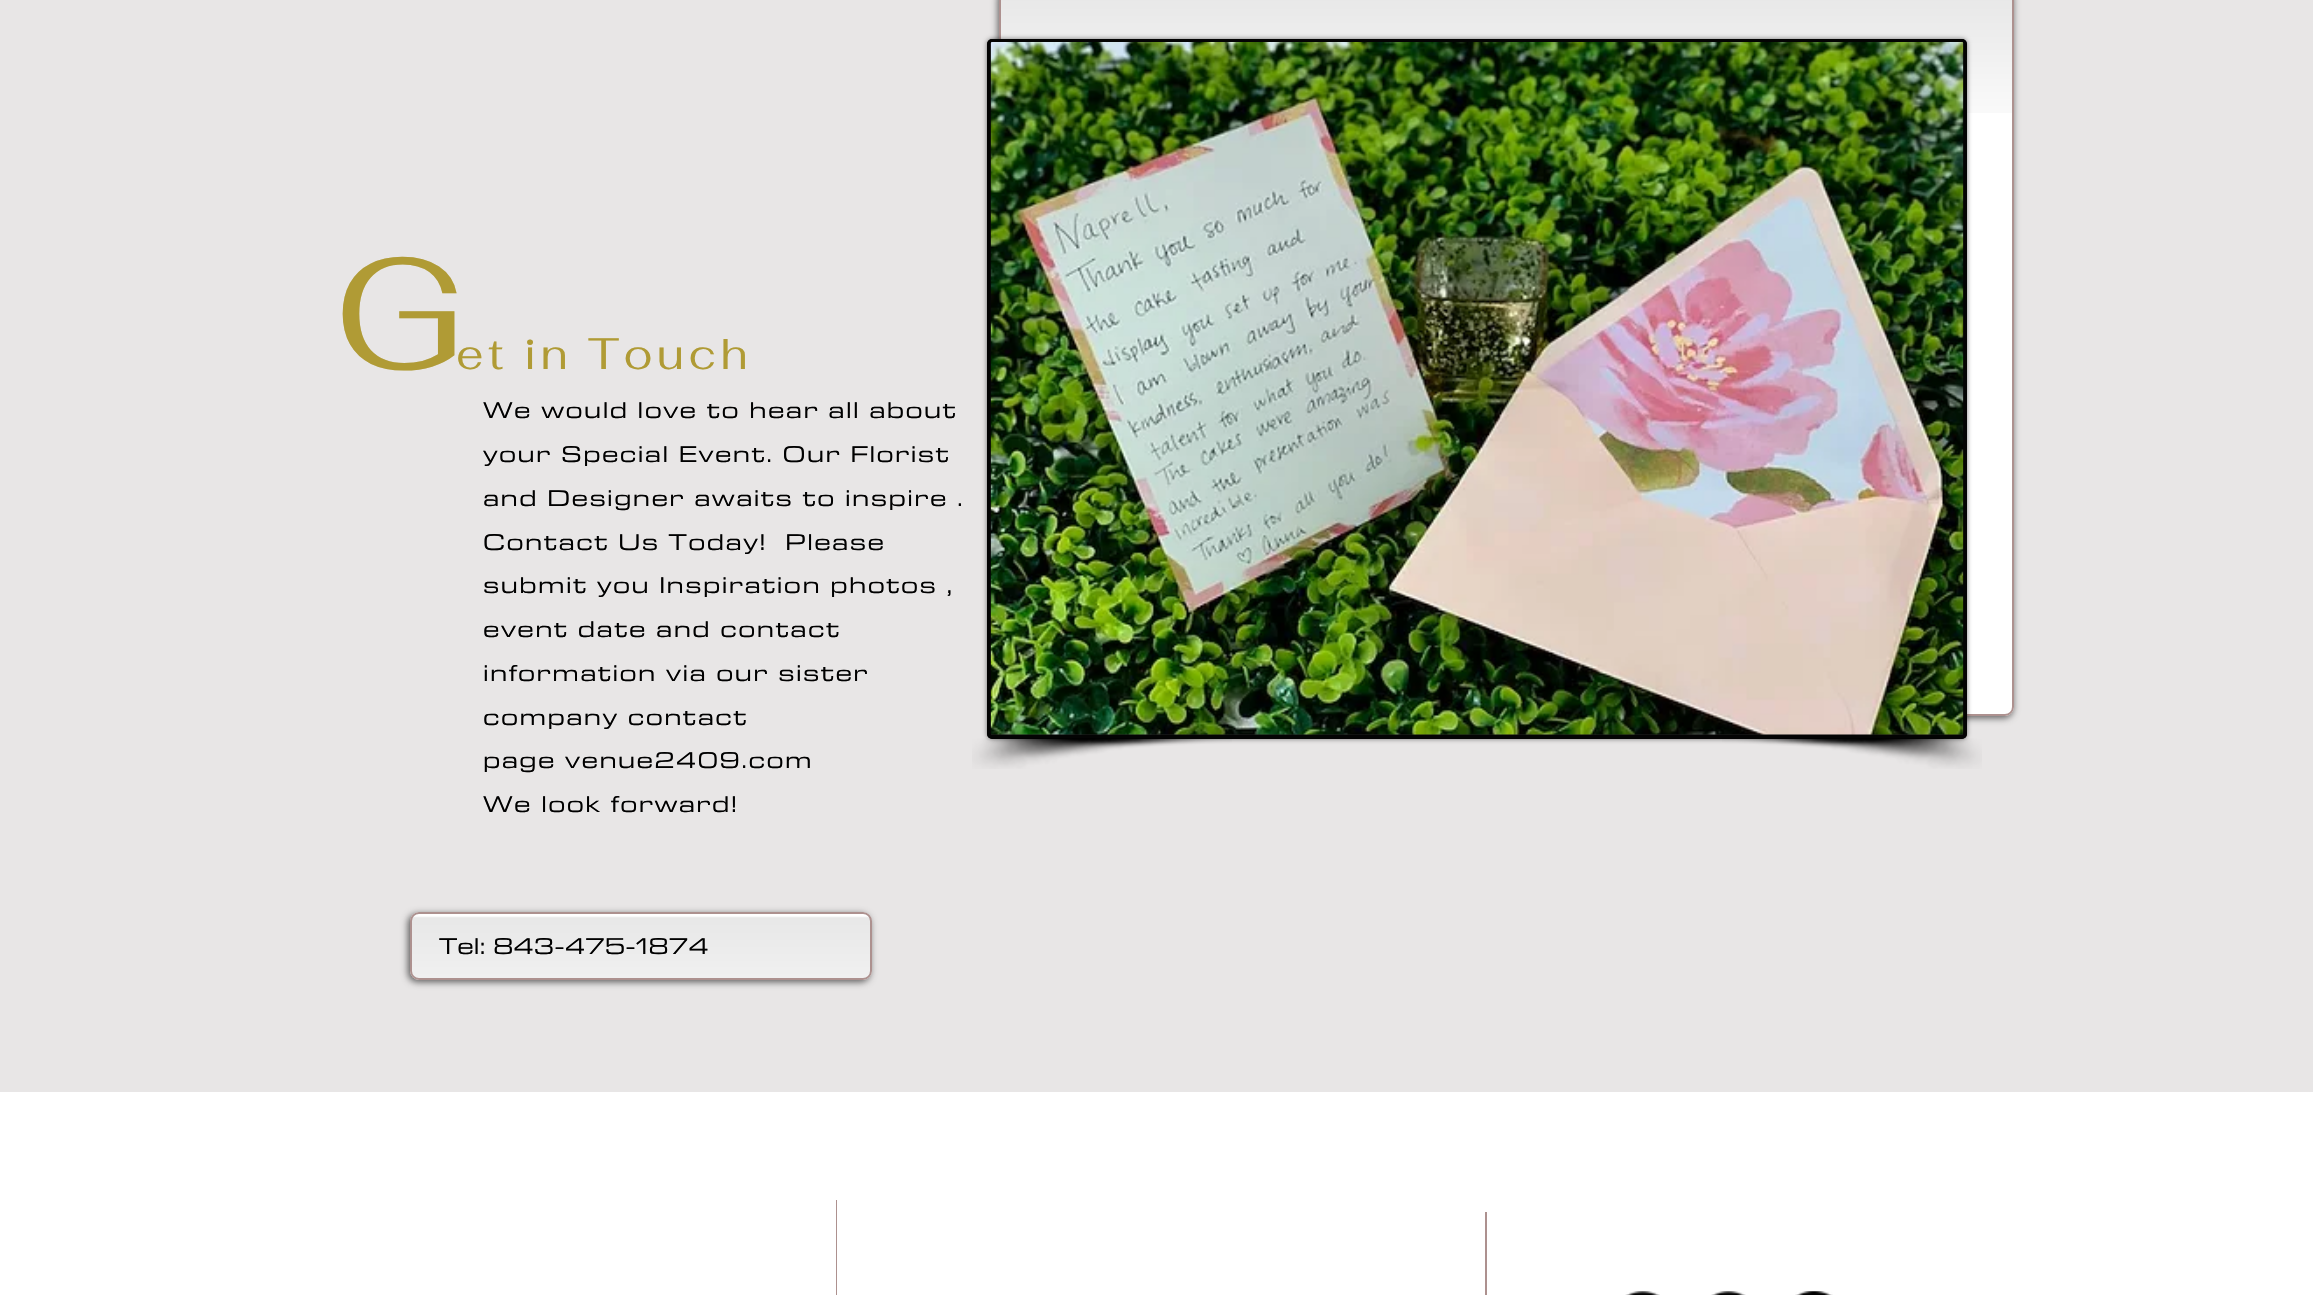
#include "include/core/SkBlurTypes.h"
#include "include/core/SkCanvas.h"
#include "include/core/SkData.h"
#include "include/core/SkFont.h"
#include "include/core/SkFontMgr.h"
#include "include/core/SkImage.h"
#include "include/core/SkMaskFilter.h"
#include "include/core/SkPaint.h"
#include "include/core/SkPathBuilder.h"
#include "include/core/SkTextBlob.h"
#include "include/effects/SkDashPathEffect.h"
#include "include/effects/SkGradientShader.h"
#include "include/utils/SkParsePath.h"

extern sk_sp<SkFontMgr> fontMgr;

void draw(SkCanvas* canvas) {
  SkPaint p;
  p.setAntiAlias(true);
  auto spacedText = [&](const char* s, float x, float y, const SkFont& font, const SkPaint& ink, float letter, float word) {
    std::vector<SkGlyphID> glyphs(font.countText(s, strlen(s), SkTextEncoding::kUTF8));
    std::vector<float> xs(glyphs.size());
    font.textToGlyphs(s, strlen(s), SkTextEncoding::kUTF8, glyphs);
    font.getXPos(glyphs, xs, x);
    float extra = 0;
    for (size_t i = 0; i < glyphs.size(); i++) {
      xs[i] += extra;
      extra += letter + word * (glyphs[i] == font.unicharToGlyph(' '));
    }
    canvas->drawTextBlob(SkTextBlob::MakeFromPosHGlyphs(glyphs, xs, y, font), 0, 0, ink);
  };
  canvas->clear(SkColorSetRGB(232, 230, 230));
  p.setColor(SkColorSetARGB(153, 0, 0, 0));
  p.setMaskFilter(SkMaskFilter::MakeBlur(kNormal_SkBlurStyle, 3.5f));
  canvas->drawRoundRect(SkRect::MakeLTRB(998, -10, 2013, 718), 9, 9, p);
  p.setMaskFilter(nullptr);
  p.setColor(SK_ColorWHITE);
  canvas->drawRoundRect(SkRect::MakeLTRB(999, -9, 2014, 716), 9, 9, p);
  canvas->drawImageRect(SkImages::DeferredFromEncodedData(SkData::MakeFromFileName("images/1.png")), SkRect::MakeLTRB(1001, 0, 2012, 113), SkSamplingOptions());
  p.setStyle(SkPaint::kStroke_Style);
  p.setStrokeWidth(2);
  p.setColor(SkColorSetRGB(173, 145, 143));
  canvas->drawRoundRect(SkRect::MakeLTRB(1000, -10, 2013, 715), 8, 8, p);
  canvas->save();
  canvas->clipPath(SkPathBuilder(SkPathFillType::kEvenOdd).moveTo(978, 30).lineTo(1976, 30).lineTo(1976, 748).lineTo(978, 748).close().moveTo(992, 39).lineTo(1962, 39).cubicTo(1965, 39, 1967, 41, 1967, 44).lineTo(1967, 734).cubicTo(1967, 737, 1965, 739, 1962, 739).lineTo(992, 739).cubicTo(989, 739, 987, 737, 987, 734).lineTo(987, 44).cubicTo(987, 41, 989, 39, 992, 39).close().detach(), true);
  p.setStyle(SkPaint::kFill_Style);
  p.setColor(SkColorSetARGB(128, 0, 0, 0));
  p.setMaskFilter(SkMaskFilter::MakeBlur(kNormal_SkBlurStyle, 2.5f));
  canvas->drawRoundRect(SkRect::MakeLTRB(987, 39, 1967, 739), 5, 5, p);
  p.setMaskFilter(nullptr);
  canvas->restore();
  p.setColor(SkColorSetARGB(224, 0, 0, 0));
  canvas->drawRoundRect(SkRect::MakeLTRB(987, 39, 1967, 739), 5, 5, p);
  p.setStyle(SkPaint::kStroke_Style);
  p.setStrokeWidth(4);
  canvas->drawRoundRect(SkRect::MakeLTRB(989, 41, 1965, 737), 3, 3, p);
  canvas->drawImageRect(SkImages::DeferredFromEncodedData(SkData::MakeFromFileName("images/2.png")), SkRect::MakeLTRB(990, 42, 1964, 735), SkSamplingOptions());
  canvas->drawImageRect(SkImages::DeferredFromEncodedData(SkData::MakeFromFileName("images/3.png")), SkRect::MakeLTRB(972, 738, 1232, 769), SkSamplingOptions());
  canvas->drawImageRect(SkImages::DeferredFromEncodedData(SkData::MakeFromFileName("images/4.png")), SkRect::MakeLTRB(1722, 738, 1982, 769), SkSamplingOptions());
  p.setStyle(SkPaint::kFill_Style);
  p.setColor(SkColorSetARGB(153, 0, 0, 0));
  p.setMaskFilter(SkMaskFilter::MakeBlur(kNormal_SkBlurStyle, 3.5f));
  canvas->drawRoundRect(SkRect::MakeLTRB(408, 914, 870, 982), 9, 9, p);
  p.setMaskFilter(nullptr);
  p.setColor(SK_ColorWHITE);
  canvas->drawRoundRect(SkRect::MakeLTRB(410, 912, 872, 980), 9, 9, p);
  canvas->drawImageRect(SkImages::DeferredFromEncodedData(SkData::MakeFromFileName("images/5.png")), SkRect::MakeLTRB(409, 916, 872, 980), SkSamplingOptions());
  p.setStyle(SkPaint::kStroke_Style);
  p.setStrokeWidth(2);
  p.setColor(SkColorSetRGB(173, 145, 143));
  canvas->drawRoundRect(SkRect::MakeLTRB(411, 913, 871, 979), 8, 8, p);
  p.setStyle(SkPaint::kFill_Style);
  p.setColor(SK_ColorWHITE);
  canvas->drawRect(SkRect::MakeLTRB(0, 1092, 2313, 1295), p);
  p.setColor(SkColorSetRGB(173, 145, 143));
  canvas->drawRect(SkRect::MakeLTRB(836, 1200, 837, 1295), p);
  canvas->drawRect(SkRect::MakeLTRB(1485, 1212, 1487, 1295), p);
  canvas->drawImageRect(SkImages::DeferredFromEncodedData(SkData::MakeFromFileName("images/6.png")), SkRect::MakeLTRB(1625, 1291, 1660, 1295), SkSamplingOptions());
  canvas->drawImageRect(SkImages::DeferredFromEncodedData(SkData::MakeFromFileName("images/7.png")), SkRect::MakeLTRB(1711, 1291, 1746, 1295), SkSamplingOptions());
  canvas->drawImageRect(SkImages::DeferredFromEncodedData(SkData::MakeFromFileName("images/8.png")), SkRect::MakeLTRB(1795, 1291, 1833, 1295), SkSamplingOptions());
  SkFont font1(fontMgr->matchFamilyStyle("Fahkwang", SkFontStyle::Normal()), 158);
  font1.setSubpixel(true);
  p.setColor(SkColorSetRGB(176, 155, 53));
  spacedText("G", 334, 369, font1, p, -9, 0);
  SkFont font2(fontMgr->matchFamilyStyle("Fahkwang", SkFontStyle::Normal()), 43.75f);
  font2.setSubpixel(true);
  spacedText("et in Touch", 456, 369, font2, p, 4.4f, 0);
  SkFont font3(fontMgr->matchFamilyStyle("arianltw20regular", SkFontStyle::Normal()), 28);
  font3.setSubpixel(true);
  p.setColor(SK_ColorBLACK);
  spacedText("We would love to hear all about", 483, 418, font3, p, 1.4f, 0);
  spacedText("your Special Event. Our Florist", 483, 462, font3, p, 1.4f, 0);
  spacedText("and Designer awaits to inspire .", 483, 506, font3, p, 1.4f, 0);
  spacedText("Contact Us Today!  Please", 483, 550, font3, p, 1.4f, 0);
  spacedText("submit you Inspiration photos ,", 483, 593, font3, p, 1.4f, 0);
  spacedText("event date and contact", 483, 637, font3, p, 1.4f, 0);
  spacedText("information via our sister", 483, 681, font3, p, 1.4f, 0);
  spacedText("company contact", 483, 725, font3, p, 1.4f, 0);
  spacedText("page venue2409.com", 483, 768, font3, p, 1.4f, 0);
  spacedText("We look forward!", 483, 812, font3, p, 1.4f, 0);
  canvas->drawString("Tel: 843-475-1874", 439, 954, font3, p);
}
